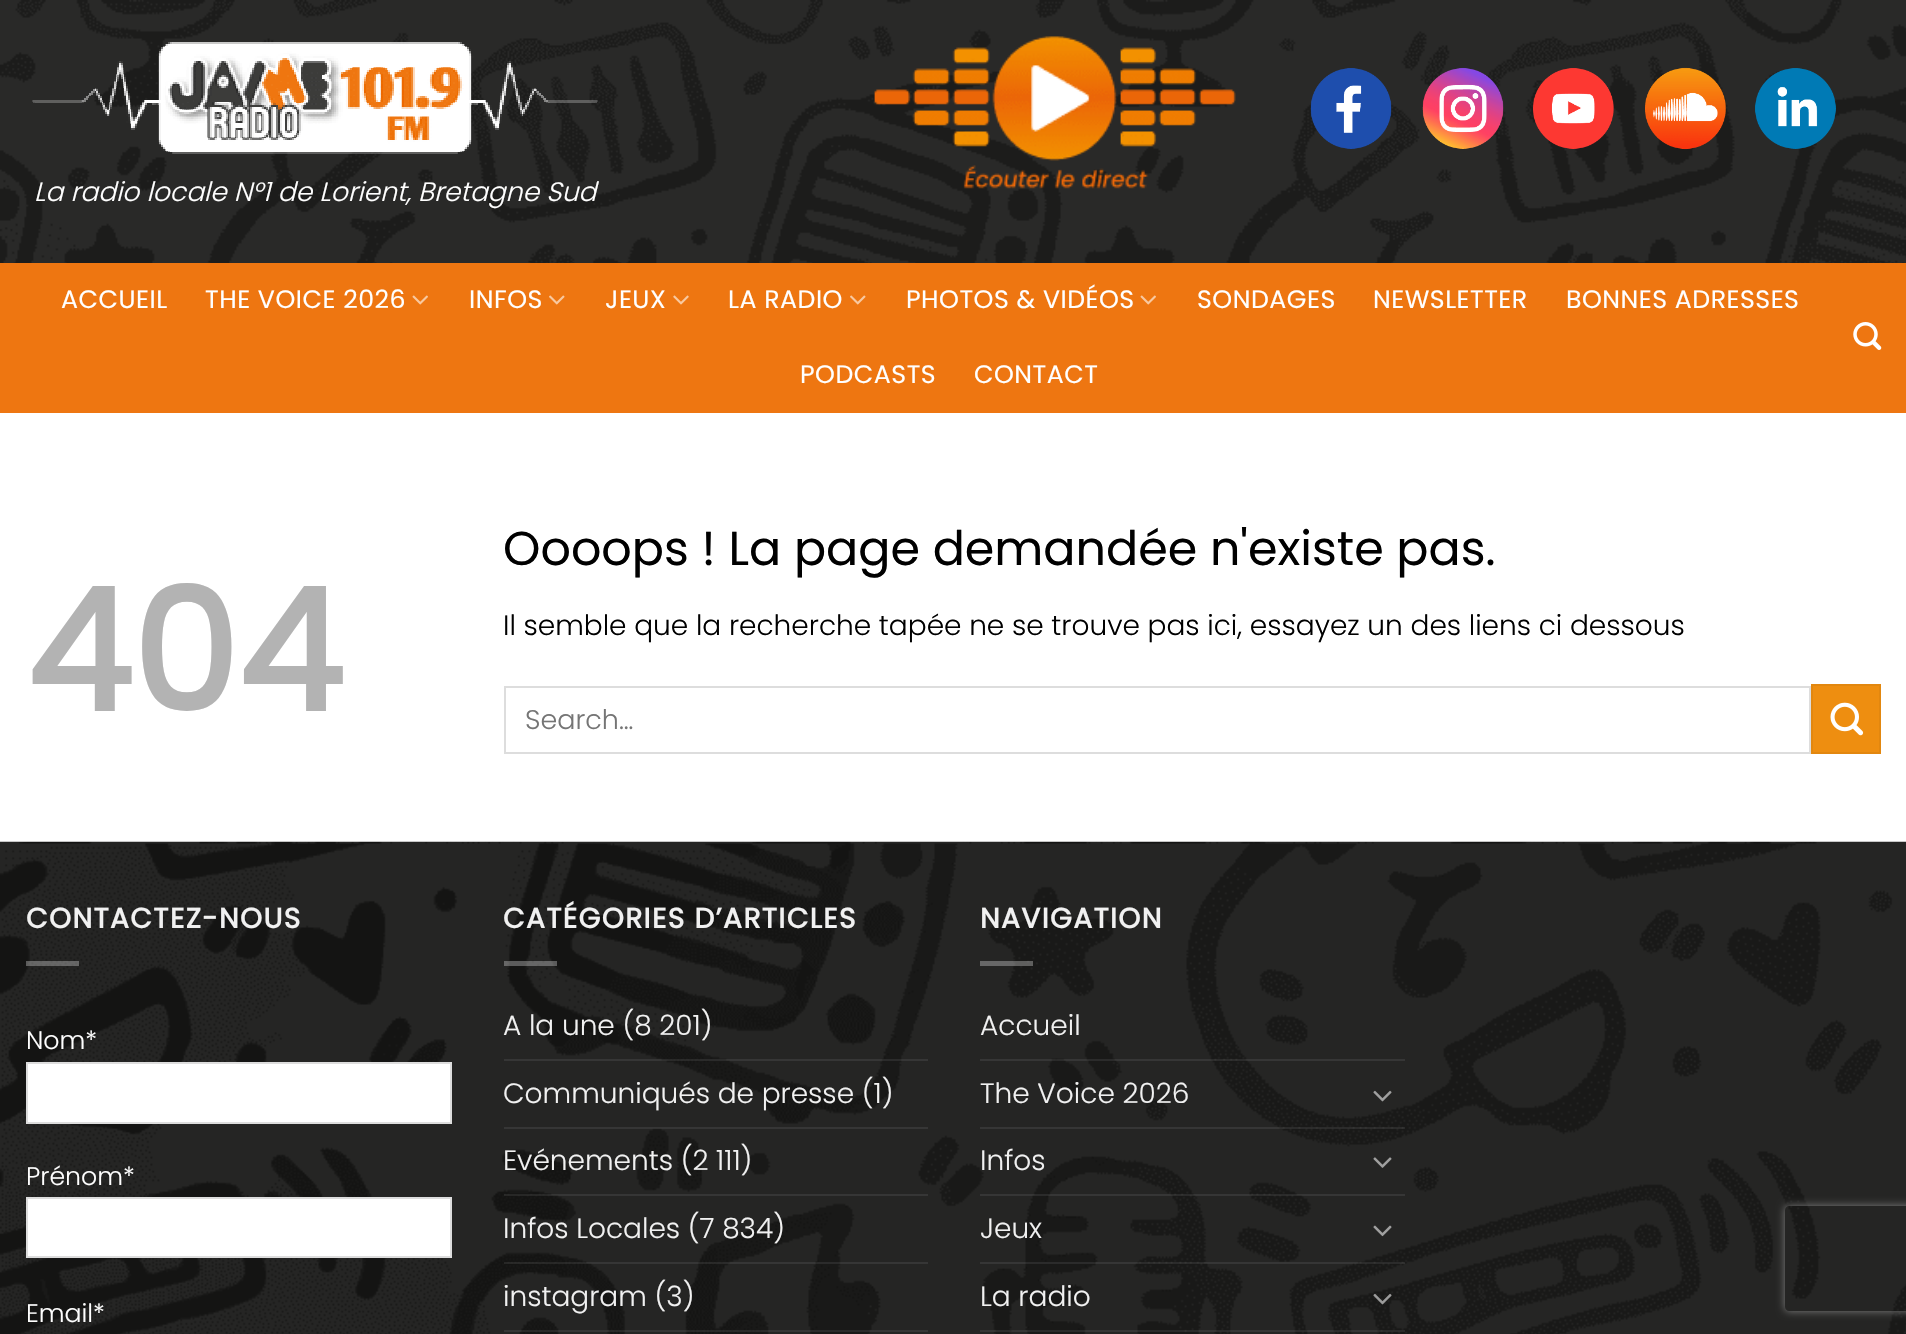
#include "include/core/SkBlurTypes.h"
#include "include/core/SkCanvas.h"
#include "include/core/SkData.h"
#include "include/core/SkFont.h"
#include "include/core/SkFontMgr.h"
#include "include/core/SkImage.h"
#include "include/core/SkMaskFilter.h"
#include "include/core/SkPaint.h"
#include "include/core/SkPathBuilder.h"
#include "include/core/SkTextBlob.h"
#include "include/effects/SkDashPathEffect.h"
#include "include/effects/SkGradientShader.h"
#include "include/utils/SkParsePath.h"

extern sk_sp<SkFontMgr> fontMgr;

void draw(SkCanvas* canvas) {
  SkPaint p;
  p.setAntiAlias(true);
  auto spacedText = [&](const char* s, float x, float y, const SkFont& font, const SkPaint& ink, float letter, float word) {
    std::vector<SkGlyphID> glyphs(font.countText(s, strlen(s), SkTextEncoding::kUTF8));
    std::vector<float> xs(glyphs.size());
    font.textToGlyphs(s, strlen(s), SkTextEncoding::kUTF8, glyphs);
    font.getXPos(glyphs, xs, x);
    float extra = 0;
    for (size_t i = 0; i < glyphs.size(); i++) {
      xs[i] += extra;
      extra += letter + word * (glyphs[i] == font.unicharToGlyph(' '));
    }
    canvas->drawTextBlob(SkTextBlob::MakeFromPosHGlyphs(glyphs, xs, y, font), 0, 0, ink);
  };
  canvas->clear(SK_ColorWHITE);
  canvas->drawImageRect(SkImages::DeferredFromEncodedData(SkData::MakeFromFileName("images/1.png")), SkRect::MakeLTRB(0, 0, 1906, 263), SkSamplingOptions());
  canvas->drawImageRect(SkImages::DeferredFromEncodedData(SkData::MakeFromFileName("images/2.png")), SkRect::MakeLTRB(874, 36, 1236, 189), SkSamplingOptions());
  canvas->drawImageRect(SkImages::DeferredFromEncodedData(SkData::MakeFromFileName("images/3.png")), SkRect::MakeLTRB(1310, 68, 1392, 149), SkSamplingOptions());
  canvas->drawImageRect(SkImages::DeferredFromEncodedData(SkData::MakeFromFileName("images/4.png")), SkRect::MakeLTRB(1422, 67, 1504, 149), SkSamplingOptions());
  canvas->drawImageRect(SkImages::DeferredFromEncodedData(SkData::MakeFromFileName("images/5.png")), SkRect::MakeLTRB(1533, 68, 1614, 149), SkSamplingOptions());
  canvas->drawImageRect(SkImages::DeferredFromEncodedData(SkData::MakeFromFileName("images/6.png")), SkRect::MakeLTRB(1645, 67, 1726, 150), SkSamplingOptions());
  canvas->drawImageRect(SkImages::DeferredFromEncodedData(SkData::MakeFromFileName("images/7.png")), SkRect::MakeLTRB(1755, 68, 1836, 149), SkSamplingOptions());
  canvas->drawImageRect(SkImages::DeferredFromEncodedData(SkData::MakeFromFileName("images/8.png")), SkRect::MakeLTRB(32, 42, 598, 154), SkSamplingOptions());
  p.setColor(SkColorSetRGB(238, 118, 17));
  canvas->drawRect(SkRect::MakeLTRB(0, 263, 1906, 413), p);
  canvas->drawImageRect(SkImages::DeferredFromEncodedData(SkData::MakeFromFileName("images/9.png")), SkRect::MakeLTRB(412, 295, 428, 305), SkSamplingOptions());
  canvas->drawImageRect(SkImages::DeferredFromEncodedData(SkData::MakeFromFileName("images/10.png")), SkRect::MakeLTRB(549, 295, 565, 305), SkSamplingOptions());
  canvas->drawImageRect(SkImages::DeferredFromEncodedData(SkData::MakeFromFileName("images/11.png")), SkRect::MakeLTRB(673, 295, 689, 305), SkSamplingOptions());
  canvas->drawImageRect(SkImages::DeferredFromEncodedData(SkData::MakeFromFileName("images/10.png")), SkRect::MakeLTRB(850, 295, 866, 305), SkSamplingOptions());
  canvas->drawImageRect(SkImages::DeferredFromEncodedData(SkData::MakeFromFileName("images/9.png")), SkRect::MakeLTRB(1140, 295, 1156, 305), SkSamplingOptions());
  canvas->drawImageRect(SkImages::DeferredFromEncodedData(SkData::MakeFromFileName("images/12.png")), SkRect::MakeLTRB(1853, 322, 1882, 350), SkSamplingOptions());
  p.setStyle(SkPaint::kStroke_Style);
  p.setStrokeWidth(2);
  p.setColor(SkColorSetRGB(221, 221, 221));
  canvas->drawRect(SkRect::MakeLTRB(505, 687, 1810, 753), p);
  p.setStyle(SkPaint::kFill_Style);
  p.setColor(SkColorSetRGB(238, 142, 16));
  canvas->drawRect(SkRect::MakeLTRB(1812, 685, 1880, 753), p);
  p.setStyle(SkPaint::kStroke_Style);
  p.setColor(SkColorSetRGB(226, 135, 15));
  canvas->drawRect(SkRect::MakeLTRB(1812, 685, 1880, 753), p);
  canvas->drawImageRect(SkImages::DeferredFromEncodedData(SkData::MakeFromFileName("images/13.png")), SkRect::MakeLTRB(1830, 702, 1864, 736), SkSamplingOptions());
  canvas->drawImageRect(SkImages::DeferredFromEncodedData(SkData::MakeFromFileName("images/14.png")), SkRect::MakeLTRB(0, 841, 1906, 1334), SkSamplingOptions());
  p.setStyle(SkPaint::kFill_Style);
  p.setColor(SkColorSetARGB(77, 255, 255, 255));
  canvas->drawRect(SkRect::MakeLTRB(26, 961, 79, 966), p);
  p.setColor(SK_ColorWHITE);
  canvas->drawRect(SkRect::MakeLTRB(27, 1063, 451, 1123), p);
  p.setStyle(SkPaint::kStroke_Style);
  p.setColor(SkColorSetRGB(221, 221, 221));
  canvas->drawRect(SkRect::MakeLTRB(27, 1063, 451, 1123), p);
  p.setStyle(SkPaint::kFill_Style);
  p.setColor(SK_ColorWHITE);
  canvas->drawRect(SkRect::MakeLTRB(27, 1198, 451, 1257), p);
  p.setStyle(SkPaint::kStroke_Style);
  p.setColor(SkColorSetRGB(221, 221, 221));
  canvas->drawRect(SkRect::MakeLTRB(27, 1198, 451, 1257), p);
  p.setStyle(SkPaint::kFill_Style);
  p.setColor(SkColorSetARGB(77, 255, 255, 255));
  canvas->drawRect(SkRect::MakeLTRB(504, 961, 557, 966), p);
  p.setColor(SkColorSetARGB(20, 255, 255, 255));
  canvas->drawRect(SkRect::MakeLTRB(504, 1059, 928, 1061), p);
  canvas->drawRect(SkRect::MakeLTRB(504, 1127, 928, 1129), p);
  canvas->drawRect(SkRect::MakeLTRB(504, 1194, 928, 1196), p);
  canvas->drawRect(SkRect::MakeLTRB(504, 1262, 928, 1264), p);
  canvas->drawRect(SkRect::MakeLTRB(504, 1330, 928, 1332), p);
  p.setColor(SkColorSetARGB(77, 255, 255, 255));
  canvas->drawRect(SkRect::MakeLTRB(980, 961, 1033, 966), p);
  p.setColor(SkColorSetARGB(20, 255, 255, 255));
  canvas->drawRect(SkRect::MakeLTRB(980, 1059, 1405, 1061), p);
  canvas->drawImageRect(SkImages::DeferredFromEncodedData(SkData::MakeFromFileName("images/15.png")), SkRect::MakeLTRB(1373, 1090, 1392, 1102), SkSamplingOptions());
  canvas->drawRect(SkRect::MakeLTRB(980, 1127, 1405, 1129), p);
  canvas->drawImageRect(SkImages::DeferredFromEncodedData(SkData::MakeFromFileName("images/16.png")), SkRect::MakeLTRB(1373, 1157, 1392, 1168), SkSamplingOptions());
  canvas->drawRect(SkRect::MakeLTRB(980, 1194, 1405, 1196), p);
  canvas->drawImageRect(SkImages::DeferredFromEncodedData(SkData::MakeFromFileName("images/17.png")), SkRect::MakeLTRB(1373, 1225, 1392, 1237), SkSamplingOptions());
  canvas->drawRect(SkRect::MakeLTRB(980, 1262, 1405, 1264), p);
  canvas->drawImageRect(SkImages::DeferredFromEncodedData(SkData::MakeFromFileName("images/18.png")), SkRect::MakeLTRB(1373, 1293, 1392, 1305), SkSamplingOptions());
  canvas->drawRect(SkRect::MakeLTRB(980, 1330, 1405, 1332), p);
  canvas->save();
  canvas->clipPath(SkPathBuilder(SkPathFillType::kEvenOdd).moveTo(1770, 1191).lineTo(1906, 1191).lineTo(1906, 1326).lineTo(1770, 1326).close().moveTo(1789, 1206).lineTo(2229, 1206).cubicTo(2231, 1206, 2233, 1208, 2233, 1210).lineTo(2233, 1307).cubicTo(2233, 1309, 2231, 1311, 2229, 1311).lineTo(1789, 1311).cubicTo(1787, 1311, 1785, 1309, 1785, 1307).lineTo(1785, 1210).cubicTo(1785, 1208, 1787, 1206, 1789, 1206).close().detach(), true);
  p.setColor(SkColorSetRGB(128, 128, 128));
  p.setMaskFilter(SkMaskFilter::MakeBlur(kNormal_SkBlurStyle, 4.5f));
  canvas->drawRoundRect(SkRect::MakeLTRB(1785, 1206, 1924, 1311), 4, 4, p);
  p.setMaskFilter(nullptr);
  canvas->restore();
  SkFont font1(fontMgr->matchFamilyStyle("Poppins", SkFontStyle(300, SkFontStyle::kNormal_Width, SkFontStyle::kItalic_Slant)), 26.6f);
  font1.setSubpixel(true);
  p.setColor(SK_ColorWHITE);
  canvas->drawString("La radio locale N°1 de Lorient, Bretagne Sud", 34, 201, font1, p);
  SkFont font2(fontMgr->matchFamilyStyle("Poppins", SkFontStyle::Normal()), 25.25f);
  font2.setSubpixel(true);
  spacedText("ACCUEIL", 61, 308, font2, p, 0.5f, 0);
  spacedText("THE VOICE 2026", 205, 308, font2, p, 0.5f, 0);
  spacedText("INFOS", 469, 308, font2, p, 0.5f, 0);
  spacedText("JEUX", 605, 308, font2, p, 0.5f, 0);
  spacedText("LA RADIO", 728, 308, font2, p, 0.5f, 0);
  spacedText("PHOTOS & VIDÉOS", 906, 308, font2, p, 0.5f, 0);
  spacedText("SONDAGES", 1197, 308, font2, p, 0.5f, 0);
  spacedText("NEWSLETTER", 1373, 308, font2, p, 0.5f, 0);
  spacedText("BONNES ADRESSES", 1566, 308, font2, p, 0.5f, 0);
  spacedText("PODCASTS", 800, 383, font2, p, 0.5f, 0);
  spacedText("CONTACT", 974, 383, font2, p, 0.5f, 0);
  SkFont font3(fontMgr->matchFamilyStyle("Poppins", SkFontStyle::Bold()), 168);
  font3.setSubpixel(true);
  p.setColor(SkColorSetRGB(179, 179, 179));
  canvas->drawString("404", 26, 711, font3, p);
  SkFont font4(fontMgr->matchFamilyStyle("Poppins", SkFontStyle::Normal()), 47.6f);
  font4.setSubpixel(true);
  p.setColor(SK_ColorBLACK);
  canvas->drawString("Oooops ! La page demandée n'existe pas.", 503, 565, font4, p);
  SkFont font5(fontMgr->matchFamilyStyle("Poppins", SkFontStyle(300, SkFontStyle::kNormal_Width, SkFontStyle::kUpright_Slant)), 28);
  font5.setSubpixel(true);
  canvas->drawString("Il semble que la recherche tapée ne se trouve pas ici, essayez un des liens ci dessous", 503, 635, font5, p);
  SkFont font6(fontMgr->matchFamilyStyle("Poppins", SkFontStyle(300, SkFontStyle::kNormal_Width, SkFontStyle::kUpright_Slant)), 27);
  font6.setSubpixel(true);
  p.setColor(SkColorSetRGB(117, 117, 117));
  canvas->drawString("Search…", 525, 729, font6, p);
  SkFont font7(fontMgr->matchFamilyStyle("Poppins", SkFontStyle::Bold()), 28);
  font7.setSubpixel(true);
  p.setColor(SkColorSetRGB(241, 241, 241));
  spacedText("CONTACTEZ-NOUS", 26, 928, font7, p, 1.4f, 0);
  SkFont font8(fontMgr->matchFamilyStyle("Poppins", SkFontStyle(300, SkFontStyle::kNormal_Width, SkFontStyle::kUpright_Slant)), 25.25f);
  font8.setSubpixel(true);
  p.setColor(SK_ColorWHITE);
  canvas->drawString("Nom*", 26, 1049, font8, p);
  canvas->drawString("Prénom*", 26, 1185, font8, p);
  canvas->drawString("Email*", 26, 1322, font8, p);
  p.setColor(SkColorSetRGB(241, 241, 241));
  spacedText("CATÉGORIES D’ARTICLES", 503, 928, font7, p, 1.4f, 0);
  canvas->drawString("A la une (8 201)", 503, 1035, font5, p);
  canvas->drawString("Communiqués de presse (1)", 503, 1103, font5, p);
  canvas->drawString("Evénements (2 111)", 503, 1170, font5, p);
  canvas->drawString("Infos Locales (7 834)", 503, 1238, font5, p);
  canvas->drawString("instagram (3)", 503, 1306, font5, p);
  spacedText("NAVIGATION", 980, 928, font7, p, 1.4f, 0);
  canvas->drawString("Accueil", 980, 1035, font5, p);
  canvas->drawString("The Voice 2026", 980, 1103, font5, p);
  canvas->drawString("Infos", 980, 1170, font5, p);
  canvas->drawString("Jeux", 980, 1238, font5, p);
  canvas->drawString("La radio", 980, 1306, font5, p);
}
